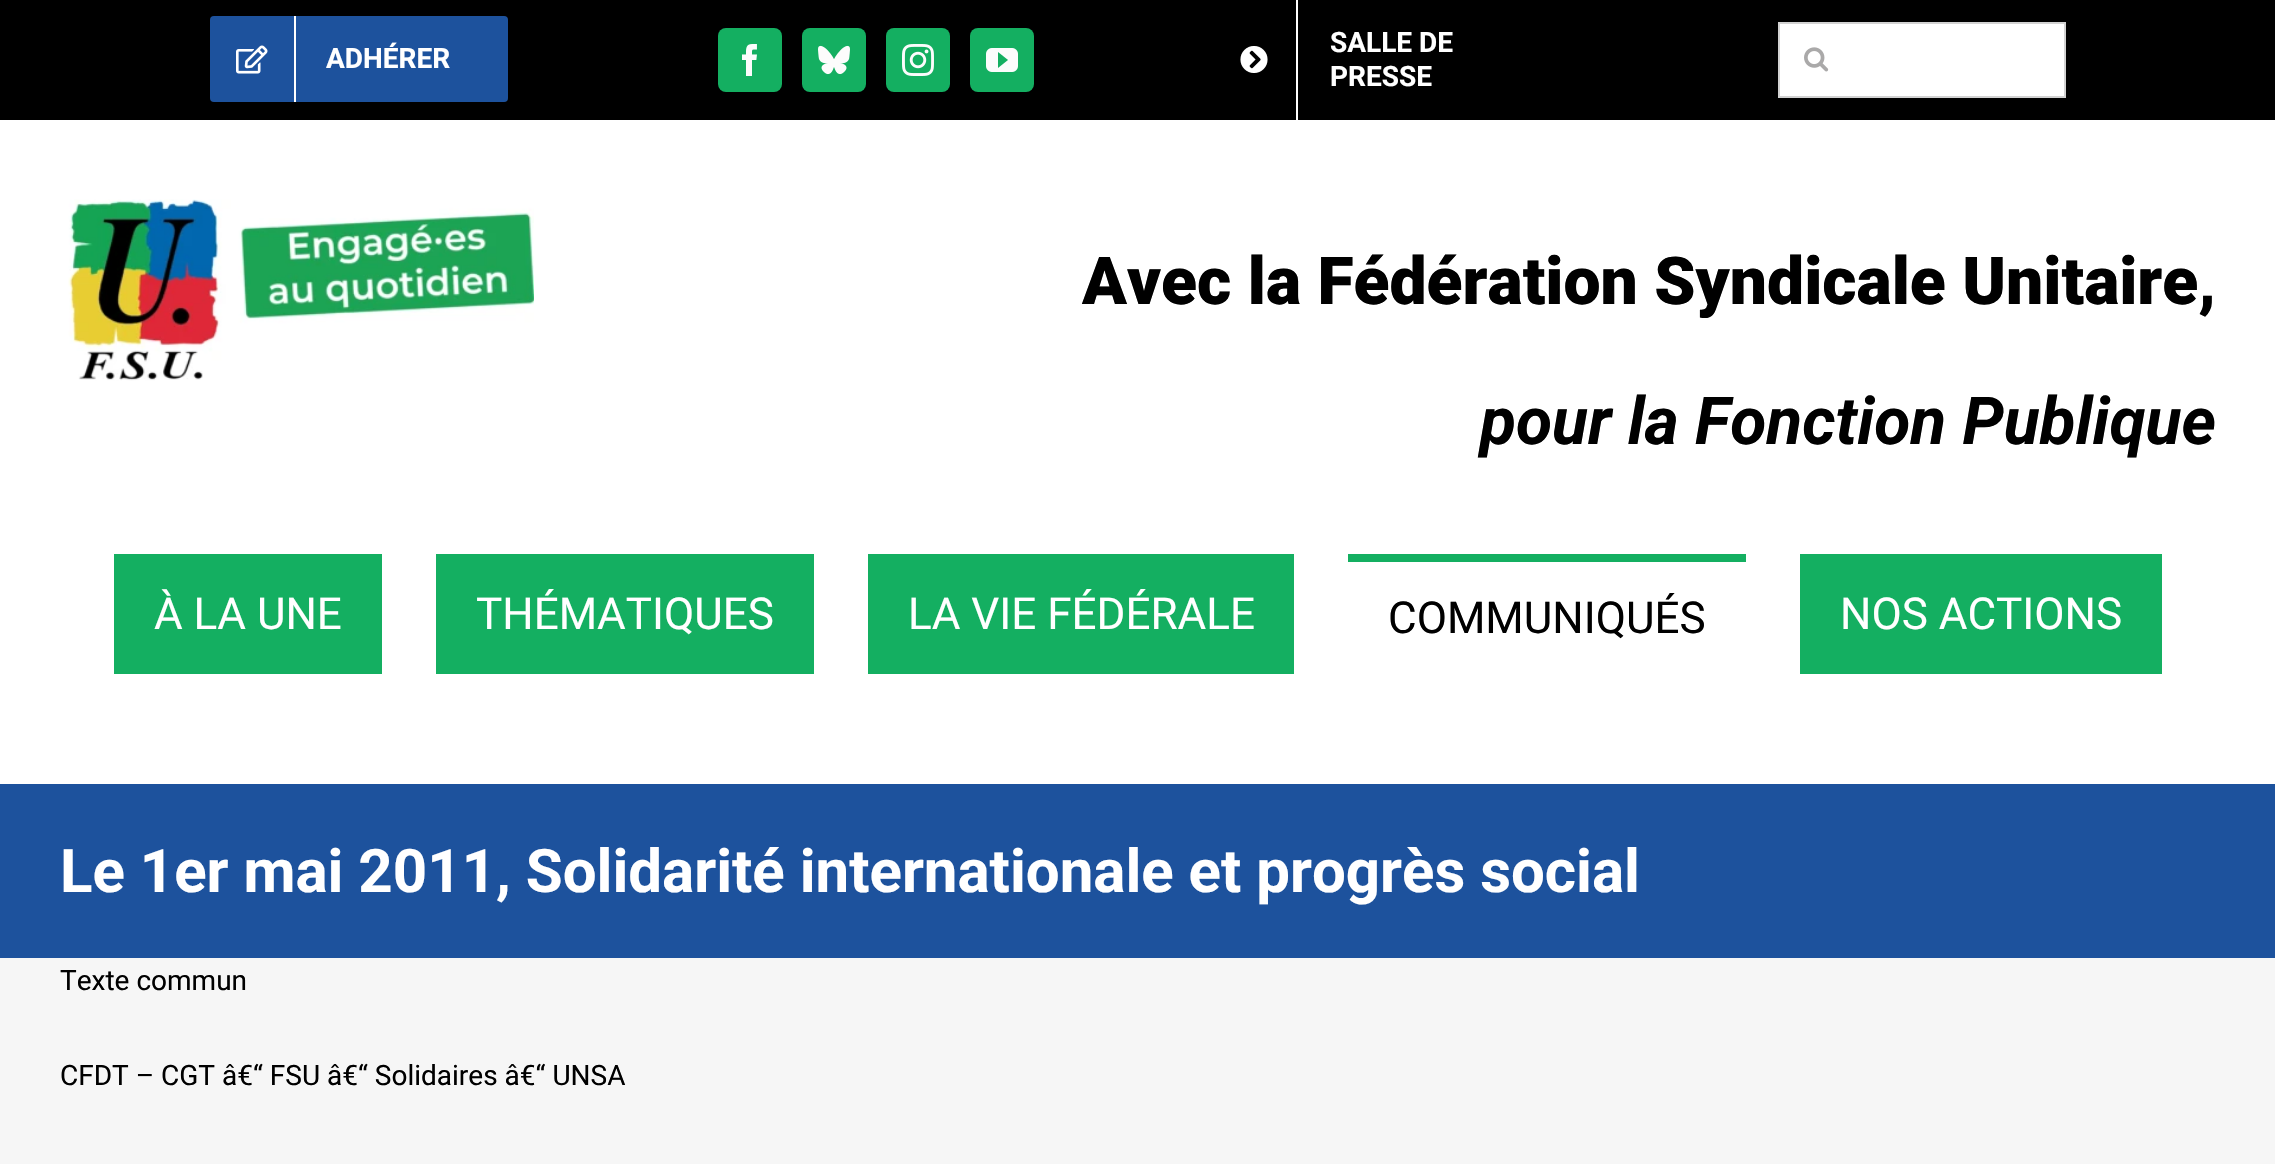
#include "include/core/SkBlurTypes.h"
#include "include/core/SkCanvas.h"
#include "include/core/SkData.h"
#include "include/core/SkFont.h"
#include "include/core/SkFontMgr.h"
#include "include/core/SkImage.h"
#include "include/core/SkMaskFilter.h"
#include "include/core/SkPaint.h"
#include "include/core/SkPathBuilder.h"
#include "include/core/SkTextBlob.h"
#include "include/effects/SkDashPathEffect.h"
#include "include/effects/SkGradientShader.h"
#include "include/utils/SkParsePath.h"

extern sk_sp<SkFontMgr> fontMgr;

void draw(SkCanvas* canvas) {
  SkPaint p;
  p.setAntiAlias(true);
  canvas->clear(SkColorSetRGB(246, 246, 246));
  p.setColor(SK_ColorBLACK);
  canvas->drawRect(SkRect::MakeLTRB(0, 0, 2275, 120), p);
  p.setColor(SkColorSetRGB(29, 82, 157));
  canvas->drawRoundRect(SkRect::MakeLTRB(210, 16, 508, 102), 4, 4, p);
  p.setColor(SK_ColorWHITE);
  canvas->drawRect(SkRect::MakeLTRB(294, 16, 296, 102), p);
  canvas->drawImageRect(SkImages::DeferredFromEncodedData(SkData::MakeFromFileName("images/1.png")), SkRect::MakeLTRB(236, 45, 268, 74), SkSamplingOptions());
  p.setColor(SkColorSetRGB(20, 175, 97));
  canvas->drawRoundRect(SkRect::MakeLTRB(718, 28, 782, 92), 8, 8, p);
  canvas->drawImageRect(SkImages::DeferredFromEncodedData(SkData::MakeFromFileName("images/2.png")), SkRect::MakeLTRB(742, 44, 757, 76), SkSamplingOptions());
  canvas->drawRoundRect(SkRect::MakeLTRB(802, 28, 866, 92), 8, 8, p);
  canvas->drawImageRect(SkImages::DeferredFromEncodedData(SkData::MakeFromFileName("images/3.png")), SkRect::MakeLTRB(818, 45, 850, 75), SkSamplingOptions());
  canvas->drawRoundRect(SkRect::MakeLTRB(886, 28, 950, 92), 8, 8, p);
  canvas->drawImageRect(SkImages::DeferredFromEncodedData(SkData::MakeFromFileName("images/4.png")), SkRect::MakeLTRB(902, 44, 934, 76), SkSamplingOptions());
  canvas->drawRoundRect(SkRect::MakeLTRB(970, 28, 1034, 92), 8, 8, p);
  canvas->drawImageRect(SkImages::DeferredFromEncodedData(SkData::MakeFromFileName("images/5.png")), SkRect::MakeLTRB(986, 48, 1018, 72), SkSamplingOptions());
  p.setColor(SK_ColorWHITE);
  canvas->drawRect(SkRect::MakeLTRB(1296, 0, 1298, 120), p);
  canvas->drawImageRect(SkImages::DeferredFromEncodedData(SkData::MakeFromFileName("images/6.png")), SkRect::MakeLTRB(1240, 46, 1268, 73), SkSamplingOptions());
  canvas->drawRect(SkRect::MakeLTRB(1779, 23, 2065, 97), p);
  p.setStyle(SkPaint::kStroke_Style);
  p.setStrokeWidth(2);
  p.setColor(SkColorSetRGB(210, 210, 210));
  canvas->drawRect(SkRect::MakeLTRB(1779, 23, 2065, 97), p);
  canvas->drawImageRect(SkImages::DeferredFromEncodedData(SkData::MakeFromFileName("images/7.png")), SkRect::MakeLTRB(1804, 47, 1829, 72), SkSamplingOptions());
  p.setStyle(SkPaint::kFill_Style);
  p.setColor(SK_ColorWHITE);
  canvas->drawRect(SkRect::MakeLTRB(0, 120, 2275, 784), p);
  canvas->drawImageRect(SkImages::DeferredFromEncodedData(SkData::MakeFromFileName("images/8.png")), SkRect::MakeLTRB(68, 199, 534, 381), SkSamplingOptions());
  p.setColor(SkColorSetRGB(20, 175, 97));
  canvas->drawRect(SkRect::MakeLTRB(114, 554, 382, 674), p);
  canvas->drawRect(SkRect::MakeLTRB(436, 554, 814, 674), p);
  canvas->drawRect(SkRect::MakeLTRB(868, 554, 1294, 674), p);
  canvas->drawRect(SkRect::MakeLTRB(1348, 554, 1746, 562), p);
  canvas->drawRect(SkRect::MakeLTRB(1800, 554, 2162, 674), p);
  p.setColor(SkColorSetRGB(29, 82, 157));
  canvas->drawRect(SkRect::MakeLTRB(0, 784, 2275, 958), p);
  SkFont font1(fontMgr->matchFamilyStyle("Roboto", SkFontStyle::Bold()), 28);
  font1.setSubpixel(true);
  p.setColor(SK_ColorWHITE);
  canvas->drawString("ADHÉRER", 326, 68, font1, p);
  canvas->drawString("SALLE DE", 1330, 52, font1, p);
  canvas->drawString("PRESSE", 1330, 86, font1, p);
  SkFont font2(fontMgr->matchFamilyStyle("Roboto", SkFontStyle(900, SkFontStyle::kNormal_Width, SkFontStyle::kUpright_Slant)), 66);
  font2.setSubpixel(true);
  p.setColor(SK_ColorBLACK);
  canvas->drawString("Avec la Fédération Syndicale Unitaire,", 1082, 304, font2, p);
  SkFont font3(fontMgr->matchFamilyStyle("Roboto", SkFontStyle::BoldItalic()), 66);
  font3.setSubpixel(true);
  canvas->drawString("pour la Fonction Publique", 1480, 444, font3, p);
  SkFont font4(fontMgr->matchFamilyStyle("Roboto", SkFontStyle::Normal()), 44);
  font4.setSubpixel(true);
  p.setColor(SK_ColorWHITE);
  canvas->drawString("À LA UNE", 154, 629, font4, p);
  canvas->drawString("THÉMATIQUES", 476, 629, font4, p);
  canvas->drawString("LA VIE FÉDÉRALE", 908, 629, font4, p);
  p.setColor(SK_ColorBLACK);
  canvas->drawString("COMMUNIQUÉS", 1388, 633, font4, p);
  p.setColor(SK_ColorWHITE);
  canvas->drawString("NOS ACTIONS", 1840, 629, font4, p);
  SkFont font5(fontMgr->matchFamilyStyle("Roboto", SkFontStyle::Bold()), 60);
  font5.setSubpixel(true);
  canvas->drawString("Le 1er mai 2011, Solidarité internationale et progrès social", 60, 892, font5, p);
  SkFont font6(fontMgr->matchFamilyStyle("Roboto", SkFontStyle::Normal()), 28);
  font6.setSubpixel(true);
  p.setColor(SK_ColorBLACK);
  canvas->drawString("Texte commun", 60, 990, font6, p);
  canvas->drawString("CFDT – CGT â€“ FSU â€“ Solidaires â€“ UNSA", 60, 1085, font6, p);
}
